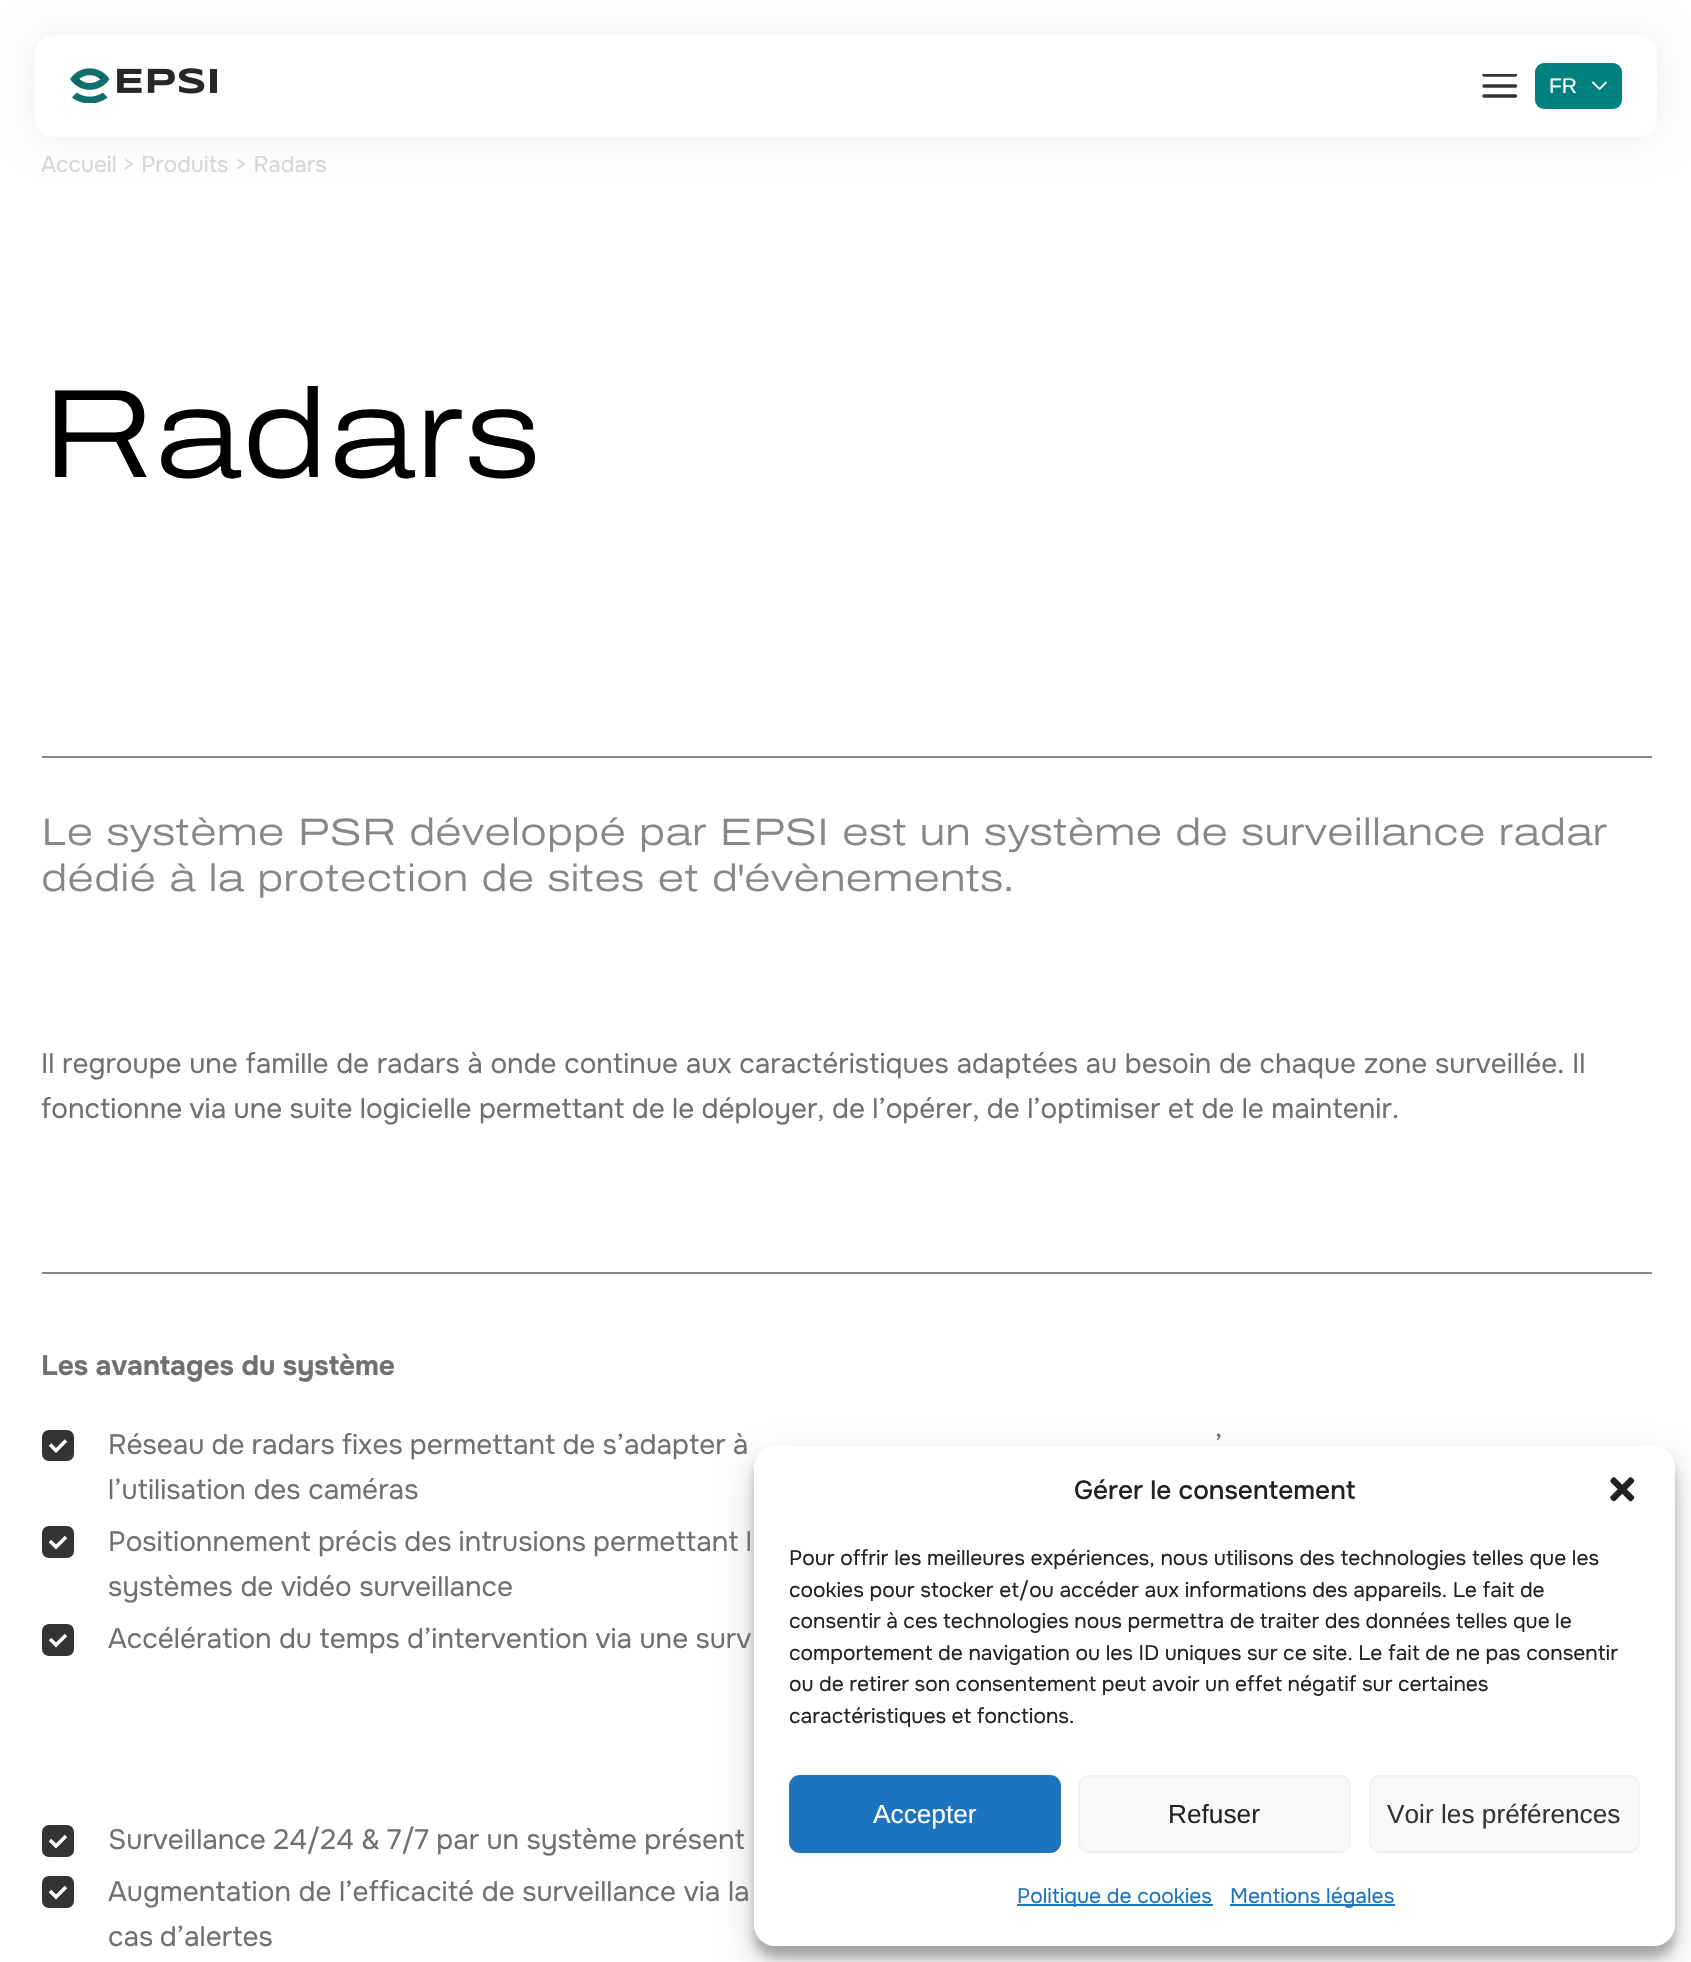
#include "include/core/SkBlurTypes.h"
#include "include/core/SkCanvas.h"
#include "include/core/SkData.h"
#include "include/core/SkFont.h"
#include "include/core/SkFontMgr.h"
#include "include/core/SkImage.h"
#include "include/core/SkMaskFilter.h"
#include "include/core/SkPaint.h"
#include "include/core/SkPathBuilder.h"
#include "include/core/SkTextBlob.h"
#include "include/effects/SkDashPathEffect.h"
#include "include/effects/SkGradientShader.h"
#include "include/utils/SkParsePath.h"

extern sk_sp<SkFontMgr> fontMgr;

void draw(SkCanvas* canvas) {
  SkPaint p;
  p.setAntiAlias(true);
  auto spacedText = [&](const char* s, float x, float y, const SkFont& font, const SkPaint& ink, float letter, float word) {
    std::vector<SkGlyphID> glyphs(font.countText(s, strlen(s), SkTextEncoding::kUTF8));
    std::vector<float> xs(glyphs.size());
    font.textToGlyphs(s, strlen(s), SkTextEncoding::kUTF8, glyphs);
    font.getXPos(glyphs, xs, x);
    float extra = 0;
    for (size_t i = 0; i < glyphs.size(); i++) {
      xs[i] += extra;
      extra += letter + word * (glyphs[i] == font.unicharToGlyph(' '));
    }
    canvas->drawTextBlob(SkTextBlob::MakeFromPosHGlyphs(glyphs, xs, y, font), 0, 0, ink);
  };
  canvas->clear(SK_ColorWHITE);
  p.setColor(SkColorSetARGB(18, 0, 0, 0));
  p.setMaskFilter(SkMaskFilter::MakeBlur(kNormal_SkBlurStyle, 18.5f));
  canvas->drawRoundRect(SkRect::MakeLTRB(35, 35, 1657, 137), 18, 18, p);
  p.setMaskFilter(nullptr);
  p.setColor(SK_ColorWHITE);
  canvas->drawRoundRect(SkRect::MakeLTRB(35, 35, 1657, 137), 18, 18, p);
  canvas->drawImageRect(SkImages::DeferredFromEncodedData(SkData::MakeFromFileName("images/1.png")), SkRect::MakeLTRB(70, 68, 217, 103), SkSamplingOptions());
  p.setStyle(SkPaint::kStroke_Style);
  p.setStrokeWidth(3.5f);
  p.setStrokeCap(SkPaint::kRound_Cap);
  p.setStrokeJoin(SkPaint::kRound_Join);
  p.setColor(SkColorSetRGB(51, 51, 51));
  canvas->drawPath(SkPathBuilder().moveTo(1484, 86).lineTo(1515.5f, 86).detach(), p);
  canvas->save();
  canvas->clipRect(SkRect::MakeLTRB(1482, 74, 1517, 98));
  canvas->drawPath(SkPathBuilder().moveTo(1484, 75).lineTo(1515.5f, 75).detach(), p);
  canvas->restore();
  canvas->drawPath(SkPathBuilder().moveTo(1484, 96).lineTo(1515.5f, 96).detach(), p);
  p.setStyle(SkPaint::kFill_Style);
  p.setColor(SkColorSetRGB(0, 128, 127));
  canvas->drawRoundRect(SkRect::MakeLTRB(1535, 63, 1622, 109), 9, 9, p);
  p.setStyle(SkPaint::kStroke_Style);
  p.setStrokeWidth(1.8f);
  p.setStrokeCap(SkPaint::kButt_Cap);
  p.setStrokeJoin(SkPaint::kMiter_Join);
  p.setColor(SK_ColorWHITE);
  canvas->drawPath(SkPathBuilder().moveTo(1592.5f, 82).lineTo(1599.5f, 89).lineTo(1606.5f, 82).detach(), p);
  p.setStyle(SkPaint::kFill_Style);
  p.setColor(SkColorSetRGB(135, 135, 135));
  canvas->drawRect(SkRect::MakeLTRB(42, 756, 1652, 758), p);
  canvas->drawRect(SkRect::MakeLTRB(42, 1272, 1652, 1274), p);
  p.setColor(SkColorSetRGB(51, 51, 51));
  canvas->drawRoundRect(SkRect::MakeLTRB(42, 1430, 74, 1461), 7, 7, p);
  p.setStyle(SkPaint::kStroke_Style);
  p.setStrokeWidth(3.5f);
  p.setColor(SK_ColorWHITE);
  canvas->drawPath(SkPathBuilder().moveTo(50, 1444.5f).lineTo(56, 1450.5f).lineTo(66, 1440.5f).detach(), p);
  p.setStyle(SkPaint::kFill_Style);
  p.setColor(SkColorSetRGB(51, 51, 51));
  canvas->drawRoundRect(SkRect::MakeLTRB(42, 1526, 74, 1558), 7, 7, p);
  p.setStyle(SkPaint::kStroke_Style);
  p.setColor(SK_ColorWHITE);
  canvas->drawPath(SkPathBuilder().moveTo(50, 1541).lineTo(56, 1547).lineTo(66, 1537).detach(), p);
  p.setStyle(SkPaint::kFill_Style);
  p.setColor(SkColorSetRGB(51, 51, 51));
  canvas->drawRoundRect(SkRect::MakeLTRB(42, 1624, 74, 1656), 7, 7, p);
  p.setStyle(SkPaint::kStroke_Style);
  p.setColor(SK_ColorWHITE);
  canvas->drawPath(SkPathBuilder().moveTo(50, 1639).lineTo(56, 1645).lineTo(66, 1635).detach(), p);
  p.setStyle(SkPaint::kFill_Style);
  p.setColor(SkColorSetRGB(51, 51, 51));
  canvas->drawRoundRect(SkRect::MakeLTRB(42, 1825, 74, 1857), 7, 7, p);
  p.setStyle(SkPaint::kStroke_Style);
  p.setColor(SK_ColorWHITE);
  canvas->drawPath(SkPathBuilder().moveTo(50, 1840).lineTo(56, 1846).lineTo(66, 1836).detach(), p);
  p.setStyle(SkPaint::kFill_Style);
  p.setColor(SkColorSetRGB(51, 51, 51));
  canvas->drawRoundRect(SkRect::MakeLTRB(42, 1876, 74, 1908), 7, 7, p);
  p.setStyle(SkPaint::kStroke_Style);
  p.setColor(SK_ColorWHITE);
  canvas->drawPath(SkPathBuilder().moveTo(50, 1891).lineTo(56, 1897).lineTo(66, 1887).detach(), p);
  p.setStyle(SkPaint::kFill_Style);
  p.setColor(SkColorSetARGB(59, 0, 0, 0));
  p.setMaskFilter(SkMaskFilter::MakeBlur(kNormal_SkBlurStyle, 5));
  canvas->drawRoundRect(SkRect::MakeLTRB(754, 1456, 1675, 1957), 21, 21, p);
  p.setMaskFilter(nullptr);
  p.setColor(SkColorSetARGB(48, 0, 0, 0));
  p.setMaskFilter(SkMaskFilter::MakeBlur(kNormal_SkBlurStyle, 17.5f));
  canvas->drawRoundRect(SkRect::MakeLTRB(754, 1463, 1675, 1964), 21, 21, p);
  p.setMaskFilter(nullptr);
  p.setColor(SK_ColorWHITE);
  canvas->drawRoundRect(SkRect::MakeLTRB(754, 1446, 1675, 1946), 21, 21, p);
  canvas->drawImageRect(SkImages::DeferredFromEncodedData(SkData::MakeFromFileName("images/2.png")), SkRect::MakeLTRB(1610, 1477, 1635, 1502), SkSamplingOptions());
  p.setColor(SkColorSetRGB(30, 115, 190));
  canvas->drawRoundRect(SkRect::MakeLTRB(790, 1776, 1060, 1852), 10, 10, p);
  p.setStyle(SkPaint::kStroke_Style);
  p.setStrokeWidth(2);
  canvas->drawRoundRect(SkRect::MakeLTRB(790, 1776, 1060, 1852), 10, 10, p);
  p.setStyle(SkPaint::kFill_Style);
  p.setColor(SkColorSetRGB(249, 249, 249));
  canvas->drawRoundRect(SkRect::MakeLTRB(1079, 1776, 1350, 1852), 10, 10, p);
  p.setStyle(SkPaint::kStroke_Style);
  p.setColor(SkColorSetRGB(242, 242, 242));
  canvas->drawRoundRect(SkRect::MakeLTRB(1079, 1776, 1350, 1852), 10, 10, p);
  p.setStyle(SkPaint::kFill_Style);
  p.setColor(SkColorSetRGB(249, 249, 249));
  canvas->drawRoundRect(SkRect::MakeLTRB(1370, 1776, 1639, 1852), 10, 10, p);
  p.setStyle(SkPaint::kStroke_Style);
  p.setColor(SkColorSetRGB(242, 242, 242));
  canvas->drawRoundRect(SkRect::MakeLTRB(1370, 1776, 1639, 1852), 10, 10, p);
  p.setStyle(SkPaint::kFill_Style);
  p.setColor(SkColorSetRGB(30, 115, 190));
  canvas->drawRect(SkRect::MakeLTRB(1017, 1904, 1213, 1906), p);
  canvas->drawRect(SkRect::MakeLTRB(1230, 1904, 1395, 1906), p);
  SkFont font1(fontMgr->matchFamilyStyle("Liberation Sans", SkFontStyle::Normal()), 21);
  font1.setSubpixel(true);
  p.setColor(SK_ColorWHITE);
  canvas->drawString("FR", 1549, 93, font1, p);
  SkFont font2(fontMgr->matchFamilyStyle("Onest", SkFontStyle::Normal()), 22.5f);
  font2.setSubpixel(true);
  p.setColor(SkColorSetRGB(214, 214, 214));
  canvas->drawString("Accueil > Produits", 41, 172, font2, p);
  canvas->drawString("> Radars", 235, 172, font2, p);
  SkFont font3(fontMgr->matchFamilyStyle("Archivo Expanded", SkFontStyle(300, SkFontStyle::kNormal_Width, SkFontStyle::kUpright_Slant)), 126);
  font3.setSubpixel(true);
  p.setColor(SK_ColorBLACK);
  canvas->drawString("Radars", 41, 477, font3, p);
  SkFont font4(fontMgr->matchFamilyStyle("Archivo Expanded", SkFontStyle(300, SkFontStyle::kNormal_Width, SkFontStyle::kUpright_Slant)), 38.2f);
  font4.setSubpixel(true);
  p.setColor(SkColorSetRGB(135, 135, 135));
  canvas->drawString("Le système PSR développé par EPSI est un système de surveillance radar", 41, 845, font4, p);
  canvas->drawString("dédié à la protection de sites et d'évènements.", 41, 891, font4, p);
  SkFont font5(fontMgr->matchFamilyStyle("Onest", SkFontStyle::Normal()), 28);
  font5.setSubpixel(true);
  p.setColor(SkColorSetRGB(112, 112, 112));
  canvas->drawString("Il regroupe une famille de radars à onde continue aux caractéristiques adaptées au besoin de chaque zone surveillée. Il", 41, 1073, font5, p);
  spacedText("fonctionne via une suite logicielle permettant de le déployer, de l’opérer, de l’optimiser et de le maintenir.", 41, 1118, font5, p, 0, -0.25f);
  SkFont font6(fontMgr->matchFamilyStyle("Onest", SkFontStyle::Bold()), 28);
  font6.setSubpixel(true);
  spacedText("Les avantages du système", 41, 1375, font6, p, 0, -0.5f);
  spacedText("Réseau de radars fixes permettant de s’adapter à", 108, 1454, font5, p, 0, -0.5f);
  spacedText("’", 1215, 1454, font5, p, 0, -0.5f);
  canvas->drawString("l’utilisation des caméras", 108, 1499, font5, p);
  spacedText("Positionnement précis des intrusions permettant l", 108, 1551, font5, p, 0, -0.5f);
  canvas->drawString("systèmes de vidéo surveillance", 108, 1596, font5, p);
  spacedText("Accélération du temps d’intervention via une surv", 108, 1648, font5, p, 0, -0.25f);
  spacedText("Surveillance 24/24 & 7/7 par un système présent", 108, 1849, font5, p, 0, -0.25f);
  canvas->drawString("Augmentation de l’efficacité de surveillance via la", 108, 1901, font5, p);
  spacedText("cas d’alertes", 108, 1946, font5, p, 0, -1);
  SkFont font7(fontMgr->matchFamilyStyle("Onest", SkFontStyle(500, SkFontStyle::kNormal_Width, SkFontStyle::kUpright_Slant)), 26.25f);
  font7.setSubpixel(true);
  p.setColor(SkColorSetRGB(34, 34, 34));
  canvas->drawString("Gérer le consentement", 1074, 1499, font7, p);
  SkFont font8(fontMgr->matchFamilyStyle("Onest", SkFontStyle::Normal()), 21);
  font8.setSubpixel(true);
  canvas->drawString("Pour offrir les meilleures expériences, nous utilisons des technologies telles que les", 789, 1565, font8, p);
  canvas->drawString("cookies pour stocker et/ou accéder aux informations des appareils. Le fait de", 789, 1597, font8, p);
  spacedText("consentir à ces technologies nous permettra de traiter des données telles que le", 789, 1628, font8, p, 0, -0.25f);
  spacedText("comportement de navigation ou les ID uniques sur ce site. Le fait de ne pas consentir", 789, 1660, font8, p, 0, -0.1f);
  spacedText("ou de retirer son consentement peut avoir un effet négatif sur certaines", 789, 1691, font8, p, 0, -0.25f);
  spacedText("caractéristiques et fonctions.", 789, 1723, font8, p, 0, -0.25f);
  SkFont font9(fontMgr->matchFamilyStyle("Liberation Sans", SkFontStyle::Normal()), 26.25f);
  font9.setSubpixel(true);
  p.setColor(SK_ColorWHITE);
  canvas->drawString("Accepter", 873, 1823, font9, p);
  p.setColor(SkColorSetRGB(34, 34, 34));
  canvas->drawString("Refuser", 1168, 1823, font9, p);
  p.setColor(SkColorSetRGB(51, 51, 51));
  canvas->drawString("Voir les préférences", 1387, 1823, font9, p);
  p.setColor(SkColorSetRGB(30, 115, 190));
  canvas->drawString("Politique de cookies", 1017, 1903, font8, p);
  canvas->drawString("Mentions légales", 1230, 1903, font8, p);
}
